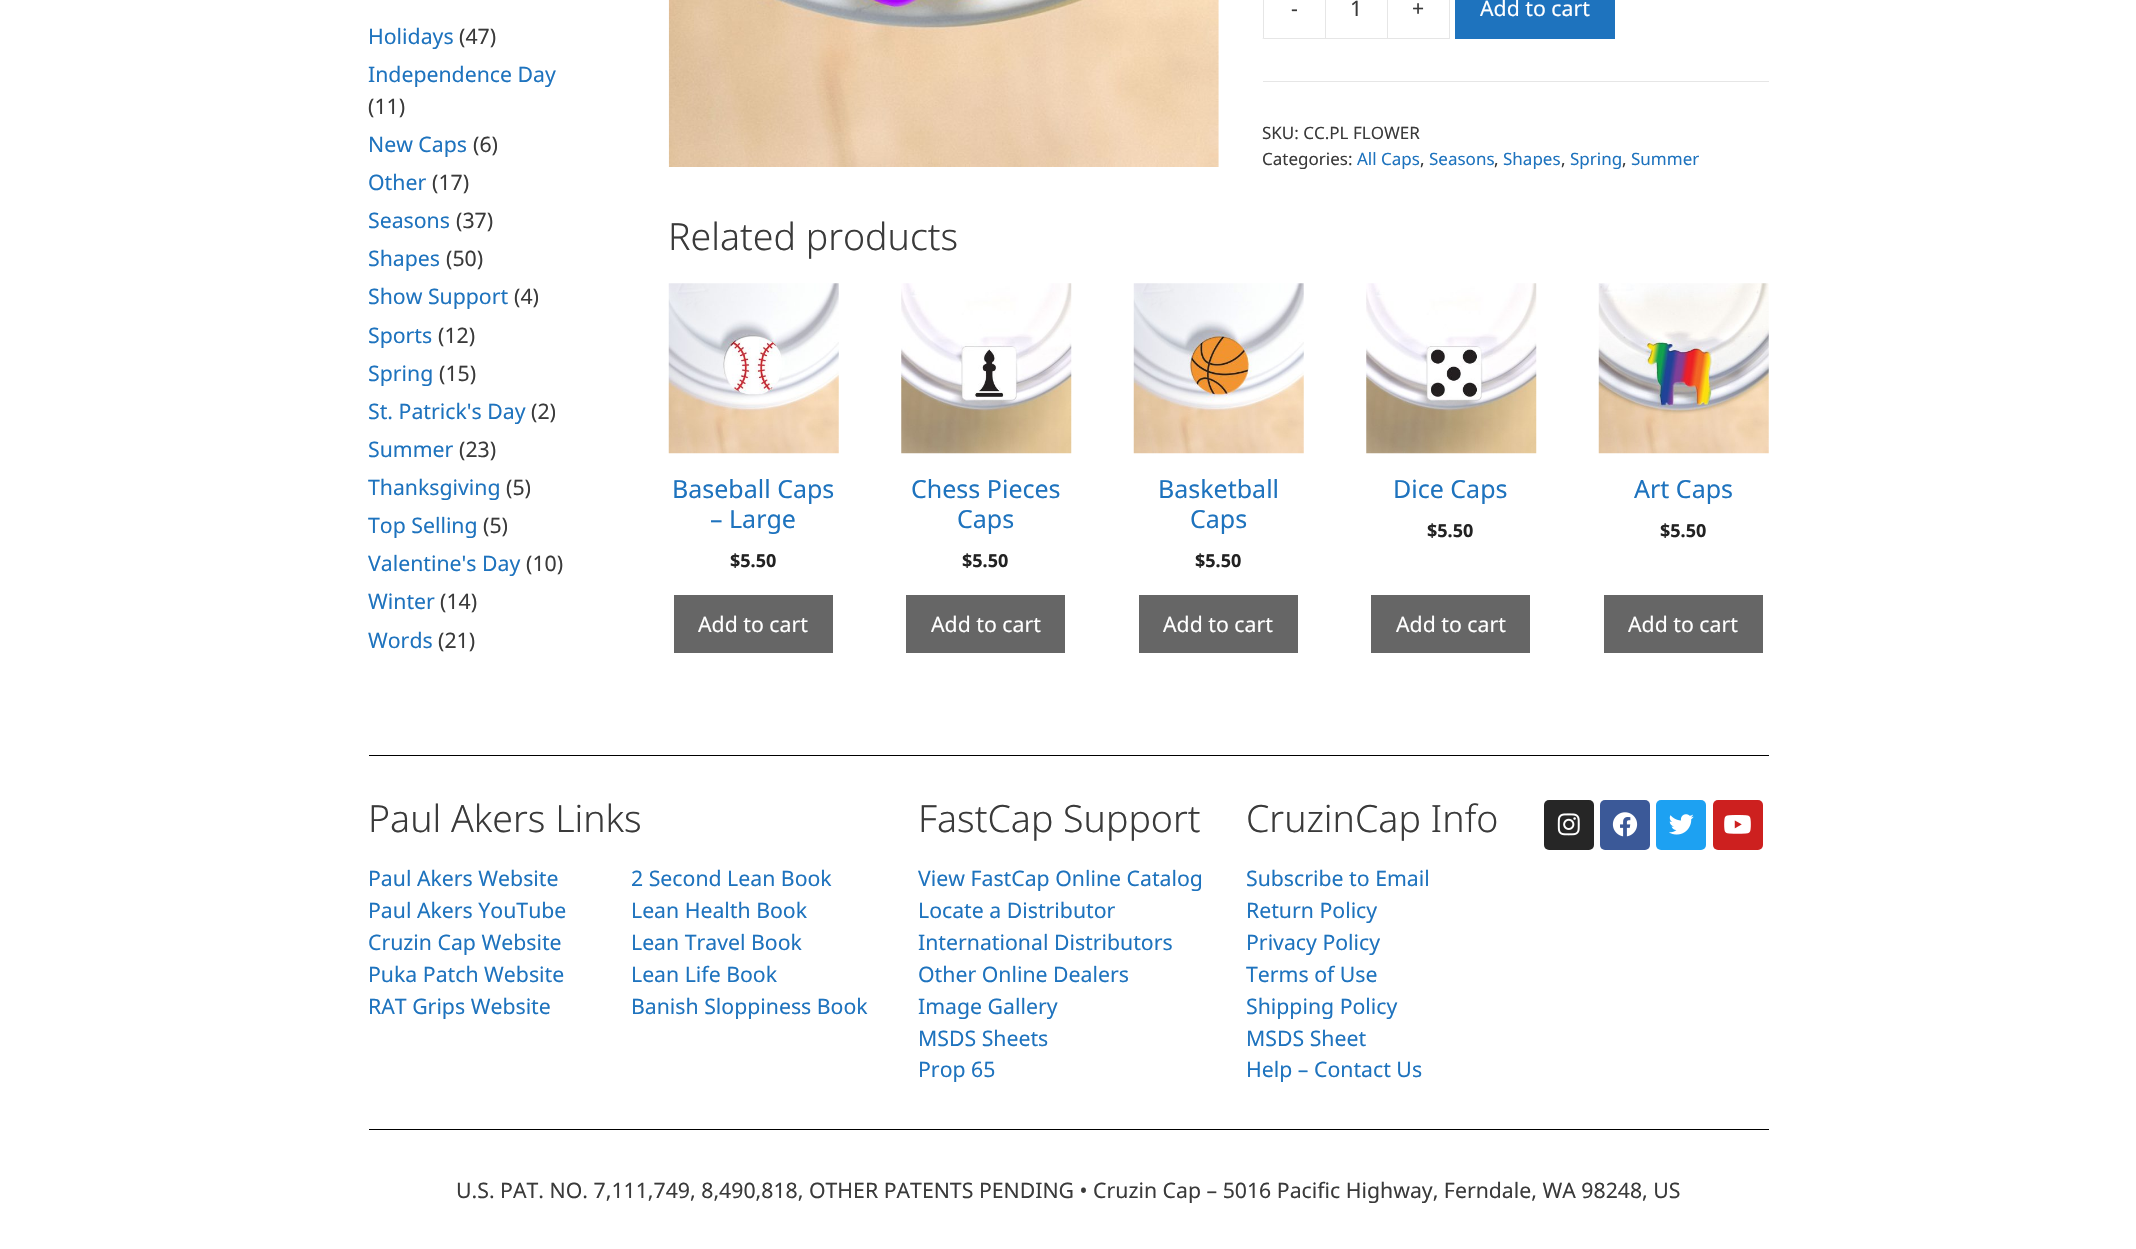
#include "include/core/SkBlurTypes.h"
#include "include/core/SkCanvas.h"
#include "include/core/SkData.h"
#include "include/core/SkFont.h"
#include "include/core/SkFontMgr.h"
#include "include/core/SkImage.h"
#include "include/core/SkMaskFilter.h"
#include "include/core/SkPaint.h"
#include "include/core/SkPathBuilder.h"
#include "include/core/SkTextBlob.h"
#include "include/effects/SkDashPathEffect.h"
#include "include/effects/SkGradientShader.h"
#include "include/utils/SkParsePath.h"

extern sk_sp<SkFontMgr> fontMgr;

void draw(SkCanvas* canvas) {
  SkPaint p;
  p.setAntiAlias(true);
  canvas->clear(SK_ColorWHITE);
  canvas->drawImageRect(SkImages::DeferredFromEncodedData(SkData::MakeFromFileName("images/1.png")), SkRect::MakeLTRB(668, 0, 1219, 167), SkSamplingOptions());
  p.setColor(SkColorSetRGB(230, 230, 230));
  canvas->drawPath(SkPathBuilder().moveTo(1325, 39).lineTo(1262, 39).lineTo(1264, 38).lineTo(1325, 38).close().detach(), p);
  canvas->save();
  canvas->clipRect(SkRect::MakeLTRB(1263, 0, 1769, 171));
  canvas->drawPath(SkPathBuilder().moveTo(1262, 39).lineTo(1262, -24).lineTo(1264, -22).lineTo(1264, 38).close().detach(), p);
  canvas->restore();
  p.setStyle(SkPaint::kStroke_Style);
  p.setStrokeWidth(1);
  canvas->drawRect(SkRect::MakeLTRB(1325.5f, -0.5f, 1387.5f, 38.5f), p);
  p.setStyle(SkPaint::kFill_Style);
  canvas->drawPath(SkPathBuilder().moveTo(1450, -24).lineTo(1450, 39).lineTo(1449, 38).lineTo(1449, -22).close().detach(), p);
  p.setColor(SkColorSetARGB(26, 0, 0, 0));
  canvas->drawPath(SkPathBuilder().moveTo(1450, 39).lineTo(1388, 39).lineTo(1388, 38).lineTo(1449, 38).close().detach(), p);
  p.setColor(SkColorSetRGB(30, 115, 190));
  canvas->drawRect(SkRect::MakeLTRB(1455, 0, 1615, 39), p);
  p.setColor(SkColorSetRGB(230, 230, 230));
  canvas->drawRect(SkRect::MakeLTRB(1263, 81, 1769, 82), p);
  canvas->drawImageRect(SkImages::DeferredFromEncodedData(SkData::MakeFromFileName("images/2.png")), SkRect::MakeLTRB(668, 283, 839, 454), SkSamplingOptions());
  p.setColor(SkColorSetRGB(102, 102, 102));
  canvas->drawRect(SkRect::MakeLTRB(674, 595, 833, 653), p);
  canvas->drawImageRect(SkImages::DeferredFromEncodedData(SkData::MakeFromFileName("images/3.png")), SkRect::MakeLTRB(901, 283, 1072, 454), SkSamplingOptions());
  canvas->drawRect(SkRect::MakeLTRB(906, 595, 1065, 653), p);
  canvas->drawImageRect(SkImages::DeferredFromEncodedData(SkData::MakeFromFileName("images/4.png")), SkRect::MakeLTRB(1133, 283, 1304, 454), SkSamplingOptions());
  canvas->drawRect(SkRect::MakeLTRB(1139, 595, 1298, 653), p);
  canvas->drawImageRect(SkImages::DeferredFromEncodedData(SkData::MakeFromFileName("images/5.png")), SkRect::MakeLTRB(1366, 283, 1537, 454), SkSamplingOptions());
  canvas->drawRect(SkRect::MakeLTRB(1371, 595, 1530, 653), p);
  canvas->drawImageRect(SkImages::DeferredFromEncodedData(SkData::MakeFromFileName("images/6.png")), SkRect::MakeLTRB(1598, 283, 1769, 454), SkSamplingOptions());
  canvas->drawRect(SkRect::MakeLTRB(1604, 595, 1763, 653), p);
  p.setColor(SK_ColorBLACK);
  canvas->drawRect(SkRect::MakeLTRB(369, 755, 1769, 756), p);
  p.setColor(SkColorSetRGB(38, 38, 38));
  canvas->drawRoundRect(SkRect::MakeLTRB(1544, 800, 1594, 850), 5, 5, p);
  canvas->drawImageRect(SkImages::DeferredFromEncodedData(SkData::MakeFromFileName("images/7.png")), SkRect::MakeLTRB(1557, 813, 1580, 836), SkSamplingOptions());
  p.setColor(SkColorSetRGB(59, 89, 152));
  canvas->drawRoundRect(SkRect::MakeLTRB(1600, 800, 1650, 850), 5, 5, p);
  canvas->drawImageRect(SkImages::DeferredFromEncodedData(SkData::MakeFromFileName("images/8.png")), SkRect::MakeLTRB(1612, 812, 1638, 837), SkSamplingOptions());
  p.setColor(SkColorSetRGB(29, 161, 242));
  canvas->drawRoundRect(SkRect::MakeLTRB(1656, 800, 1706, 850), 5, 5, p);
  canvas->drawImageRect(SkImages::DeferredFromEncodedData(SkData::MakeFromFileName("images/9.png")), SkRect::MakeLTRB(1669, 814, 1694, 835), SkSamplingOptions());
  p.setColor(SkColorSetRGB(205, 32, 31));
  canvas->drawRoundRect(SkRect::MakeLTRB(1713, 800, 1763, 850), 5, 5, p);
  canvas->drawImageRect(SkImages::DeferredFromEncodedData(SkData::MakeFromFileName("images/10.png")), SkRect::MakeLTRB(1724, 815, 1751, 834), SkSamplingOptions());
  p.setColor(SK_ColorBLACK);
  canvas->drawRect(SkRect::MakeLTRB(369, 1129, 1769, 1130), p);
  SkFont font1(fontMgr->matchFamilyStyle("Noto Sans", SkFontStyle::Normal()), 21.25f);
  font1.setSubpixel(true);
  p.setColor(SkColorSetRGB(30, 115, 190));
  canvas->drawString("Holidays", 368, 44, font1, p);
  p.setColor(SkColorSetRGB(58, 58, 58));
  canvas->drawString("(47)", 459, 44, font1, p);
  p.setColor(SkColorSetRGB(30, 115, 190));
  canvas->drawString("Independence Day", 368, 82, font1, p);
  p.setColor(SkColorSetRGB(58, 58, 58));
  canvas->drawString("(11)", 368, 114, font1, p);
  p.setColor(SkColorSetRGB(30, 115, 190));
  canvas->drawString("New Caps", 368, 152, font1, p);
  p.setColor(SkColorSetRGB(58, 58, 58));
  canvas->drawString("(6)", 473, 152, font1, p);
  p.setColor(SkColorSetRGB(30, 115, 190));
  canvas->drawString("Other", 368, 190, font1, p);
  p.setColor(SkColorSetRGB(58, 58, 58));
  canvas->drawString("(17)", 432, 190, font1, p);
  p.setColor(SkColorSetRGB(30, 115, 190));
  canvas->drawString("Seasons", 368, 228, font1, p);
  p.setColor(SkColorSetRGB(58, 58, 58));
  canvas->drawString("(37)", 456, 228, font1, p);
  p.setColor(SkColorSetRGB(30, 115, 190));
  canvas->drawString("Shapes", 368, 266, font1, p);
  p.setColor(SkColorSetRGB(58, 58, 58));
  canvas->drawString("(50)", 446, 266, font1, p);
  p.setColor(SkColorSetRGB(30, 115, 190));
  canvas->drawString("Show Support", 368, 304, font1, p);
  p.setColor(SkColorSetRGB(58, 58, 58));
  canvas->drawString("(4)", 514, 304, font1, p);
  p.setColor(SkColorSetRGB(30, 115, 190));
  canvas->drawString("Sports", 368, 343, font1, p);
  p.setColor(SkColorSetRGB(58, 58, 58));
  canvas->drawString("(12)", 438, 343, font1, p);
  p.setColor(SkColorSetRGB(30, 115, 190));
  canvas->drawString("Spring", 368, 381, font1, p);
  p.setColor(SkColorSetRGB(58, 58, 58));
  canvas->drawString("(15)", 439, 381, font1, p);
  p.setColor(SkColorSetRGB(30, 115, 190));
  canvas->drawString("St. Patrick's Day", 368, 419, font1, p);
  p.setColor(SkColorSetRGB(58, 58, 58));
  canvas->drawString("(2)", 531, 419, font1, p);
  p.setColor(SkColorSetRGB(30, 115, 190));
  canvas->drawString("Summer", 368, 457, font1, p);
  p.setColor(SkColorSetRGB(58, 58, 58));
  canvas->drawString("(23)", 459, 457, font1, p);
  p.setColor(SkColorSetRGB(30, 115, 190));
  canvas->drawString("Thanksgiving", 368, 495, font1, p);
  p.setColor(SkColorSetRGB(58, 58, 58));
  canvas->drawString("(5)", 506, 495, font1, p);
  p.setColor(SkColorSetRGB(30, 115, 190));
  canvas->drawString("Top Selling", 368, 533, font1, p);
  p.setColor(SkColorSetRGB(58, 58, 58));
  canvas->drawString("(5)", 483, 533, font1, p);
  p.setColor(SkColorSetRGB(30, 115, 190));
  canvas->drawString("Valentine's Day", 368, 571, font1, p);
  p.setColor(SkColorSetRGB(58, 58, 58));
  canvas->drawString("(10)", 526, 571, font1, p);
  p.setColor(SkColorSetRGB(30, 115, 190));
  canvas->drawString("Winter", 368, 609, font1, p);
  p.setColor(SkColorSetRGB(58, 58, 58));
  canvas->drawString("(14)", 440, 609, font1, p);
  p.setColor(SkColorSetRGB(30, 115, 190));
  canvas->drawString("Words", 368, 648, font1, p);
  p.setColor(SkColorSetRGB(58, 58, 58));
  canvas->drawString("(21)", 438, 648, font1, p);
  canvas->drawString("-", 1291, 16, font1, p);
  canvas->drawString("1", 1350, 16, font1, p);
  canvas->drawString("+", 1412, 16, font1, p);
  p.setColor(SK_ColorWHITE);
  canvas->drawString("Add to cart", 1480, 16, font1, p);
  SkFont font2(fontMgr->matchFamilyStyle("Noto Sans", SkFontStyle::Normal()), 17);
  font2.setSubpixel(true);
  p.setColor(SkColorSetRGB(58, 58, 58));
  canvas->drawString("SKU: CC.PL FLOWER", 1262, 139, font2, p);
  canvas->drawString("Categories:", 1262, 165, font2, p);
  p.setColor(SkColorSetRGB(30, 115, 190));
  canvas->drawString("All Caps", 1357, 165, font2, p);
  p.setColor(SkColorSetRGB(58, 58, 58));
  canvas->drawString(",", 1420, 165, font2, p);
  p.setColor(SkColorSetRGB(30, 115, 190));
  canvas->drawString("Seasons", 1429, 165, font2, p);
  p.setColor(SkColorSetRGB(58, 58, 58));
  canvas->drawString(",", 1494, 165, font2, p);
  p.setColor(SkColorSetRGB(30, 115, 190));
  canvas->drawString("Shapes", 1503, 165, font2, p);
  p.setColor(SkColorSetRGB(58, 58, 58));
  canvas->drawString(",", 1561, 165, font2, p);
  p.setColor(SkColorSetRGB(30, 115, 190));
  canvas->drawString("Spring", 1570, 165, font2, p);
  p.setColor(SkColorSetRGB(58, 58, 58));
  canvas->drawString(",", 1622, 165, font2, p);
  p.setColor(SkColorSetRGB(30, 115, 190));
  canvas->drawString("Summer", 1631, 165, font2, p);
  SkFont font3(fontMgr->matchFamilyStyle("Noto Sans", SkFontStyle(300, SkFontStyle::kNormal_Width, SkFontStyle::kUpright_Slant)), 37.5f);
  font3.setSubpixel(true);
  p.setColor(SkColorSetRGB(58, 58, 58));
  canvas->drawString("Related products", 668, 250, font3, p);
  SkFont font4(fontMgr->matchFamilyStyle("Noto Sans", SkFontStyle::Normal()), 25);
  font4.setSubpixel(true);
  p.setColor(SkColorSetRGB(30, 115, 190));
  canvas->drawString("Baseball Caps", 672, 498, font4, p);
  canvas->drawString("– Large", 710, 528, font4, p);
  SkFont font5(fontMgr->matchFamilyStyle("Noto Sans", SkFontStyle::Bold()), 18);
  font5.setSubpixel(true);
  p.setColor(SkColorSetRGB(34, 34, 34));
  canvas->drawString("$5.50", 730, 567, font5, p);
  p.setColor(SK_ColorWHITE);
  canvas->drawString("Add to cart", 698, 632, font1, p);
  p.setColor(SkColorSetRGB(30, 115, 190));
  canvas->drawString("Chess Pieces", 911, 498, font4, p);
  canvas->drawString("Caps", 957, 528, font4, p);
  p.setColor(SkColorSetRGB(34, 34, 34));
  canvas->drawString("$5.50", 962, 567, font5, p);
  p.setColor(SK_ColorWHITE);
  canvas->drawString("Add to cart", 931, 632, font1, p);
  p.setColor(SkColorSetRGB(30, 115, 190));
  canvas->drawString("Basketball", 1158, 498, font4, p);
  canvas->drawString("Caps", 1190, 528, font4, p);
  p.setColor(SkColorSetRGB(34, 34, 34));
  canvas->drawString("$5.50", 1195, 567, font5, p);
  p.setColor(SK_ColorWHITE);
  canvas->drawString("Add to cart", 1163, 632, font1, p);
  p.setColor(SkColorSetRGB(30, 115, 190));
  canvas->drawString("Dice Caps", 1393, 498, font4, p);
  p.setColor(SkColorSetRGB(34, 34, 34));
  canvas->drawString("$5.50", 1427, 537, font5, p);
  p.setColor(SK_ColorWHITE);
  canvas->drawString("Add to cart", 1396, 632, font1, p);
  p.setColor(SkColorSetRGB(30, 115, 190));
  canvas->drawString("Art Caps", 1634, 498, font4, p);
  p.setColor(SkColorSetRGB(34, 34, 34));
  canvas->drawString("$5.50", 1660, 537, font5, p);
  p.setColor(SK_ColorWHITE);
  canvas->drawString("Add to cart", 1628, 632, font1, p);
  p.setColor(SkColorSetRGB(58, 58, 58));
  canvas->drawString("Paul Akers Links", 368, 832, font3, p);
  p.setColor(SkColorSetRGB(30, 115, 190));
  canvas->drawString("Paul Akers Website", 368, 886, font1, p);
  canvas->drawString("Paul Akers YouTube", 368, 918, font1, p);
  canvas->drawString("Cruzin Cap Website", 368, 950, font1, p);
  canvas->drawString("Puka Patch Website", 368, 982, font1, p);
  canvas->drawString("RAT Grips Website", 368, 1014, font1, p);
  canvas->drawString("2 Second Lean Book", 631, 886, font1, p);
  canvas->drawString("Lean Health Book", 631, 918, font1, p);
  canvas->drawString("Lean Travel Book", 631, 950, font1, p);
  canvas->drawString("Lean Life Book", 631, 982, font1, p);
  canvas->drawString("Banish Sloppiness Book", 631, 1014, font1, p);
  p.setColor(SkColorSetRGB(58, 58, 58));
  canvas->drawString("FastCap Support", 918, 832, font3, p);
  p.setColor(SkColorSetRGB(30, 115, 190));
  canvas->drawString("View FastCap Online Catalog", 918, 886, font1, p);
  canvas->drawString("Locate a Distributor", 918, 918, font1, p);
  canvas->drawString("International Distributors", 918, 950, font1, p);
  canvas->drawString("Other Online Dealers", 918, 982, font1, p);
  canvas->drawString("Image Gallery", 918, 1014, font1, p);
  canvas->drawString("MSDS Sheets", 918, 1046, font1, p);
  canvas->drawString("Prop 65", 918, 1077, font1, p);
  p.setColor(SkColorSetRGB(58, 58, 58));
  canvas->drawString("CruzinCap Info", 1246, 832, font3, p);
  p.setColor(SkColorSetRGB(30, 115, 190));
  canvas->drawString("Subscribe to Email", 1246, 886, font1, p);
  canvas->drawString("Return Policy", 1246, 918, font1, p);
  canvas->drawString("Privacy Policy", 1246, 950, font1, p);
  canvas->drawString("Terms of Use", 1246, 982, font1, p);
  canvas->drawString("Shipping Policy", 1246, 1014, font1, p);
  canvas->drawString("MSDS Sheet", 1246, 1046, font1, p);
  canvas->drawString("Help – Contact Us", 1246, 1077, font1, p);
  p.setColor(SkColorSetRGB(58, 58, 58));
  canvas->drawString("U.S. PAT. NO. 7,111,749, 8,490,818, OTHER PATENTS PENDING • Cruzin Cap – 5016 Pacific Highway, Ferndale, WA 98248, US", 456, 1198, font1, p);
}
